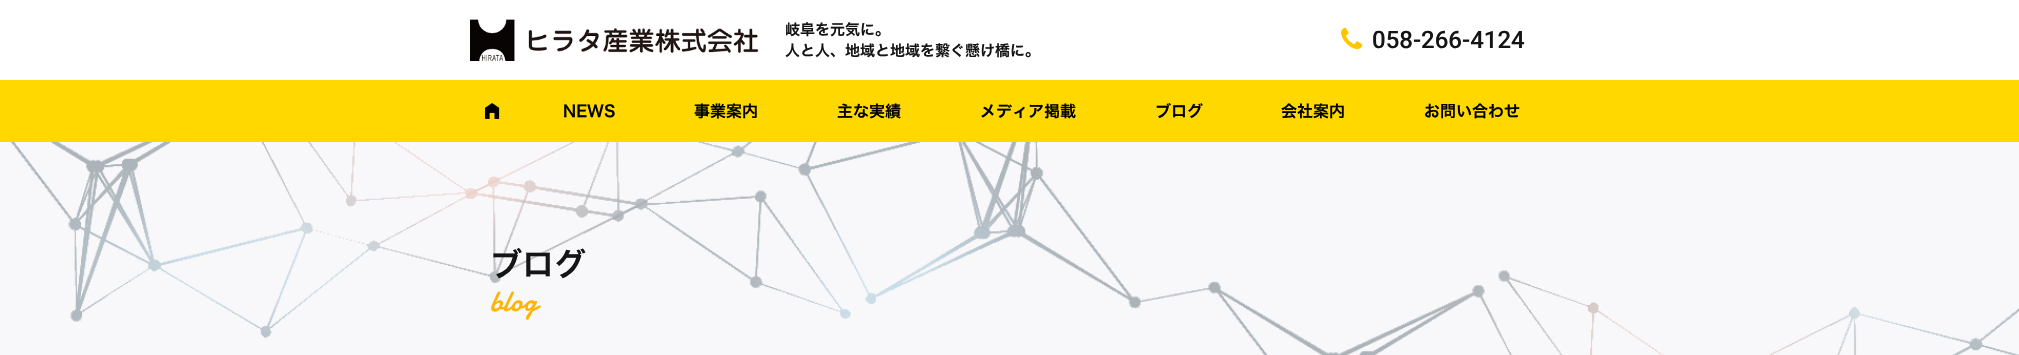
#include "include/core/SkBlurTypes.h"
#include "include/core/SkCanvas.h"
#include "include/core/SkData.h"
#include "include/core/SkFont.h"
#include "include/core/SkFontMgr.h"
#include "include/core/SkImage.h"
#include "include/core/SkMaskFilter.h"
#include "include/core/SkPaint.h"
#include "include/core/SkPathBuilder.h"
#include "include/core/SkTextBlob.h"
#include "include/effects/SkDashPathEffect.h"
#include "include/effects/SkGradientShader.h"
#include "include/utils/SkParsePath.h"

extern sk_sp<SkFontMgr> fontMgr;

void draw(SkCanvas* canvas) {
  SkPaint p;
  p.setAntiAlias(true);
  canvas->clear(SK_ColorWHITE);
  canvas->drawImageRect(SkImages::DeferredFromEncodedData(SkData::MakeFromFileName("images/1.png")), SkRect::MakeLTRB(470, 19, 759, 61), SkSamplingOptions());
  canvas->drawImageRect(SkImages::DeferredFromEncodedData(SkData::MakeFromFileName("images/2.png")), SkRect::MakeLTRB(1341, 27, 1363, 50), SkSamplingOptions());
  p.setColor(SkColorSetRGB(255, 216, 0));
  canvas->drawRect(SkRect::MakeLTRB(0, 80, 2019, 142), p);
  canvas->drawImageRect(SkImages::DeferredFromEncodedData(SkData::MakeFromFileName("images/3.png")), SkRect::MakeLTRB(485, 103, 500, 119), SkSamplingOptions());
  p.setColor(SkColorSetRGB(248, 248, 250));
  canvas->drawRect(SkRect::MakeLTRB(0, 142, 2019, 355), p);
  canvas->drawImageRect(SkImages::DeferredFromEncodedData(SkData::MakeFromFileName("images/4.png")), SkRect::MakeLTRB(10, 142, 2019, 355), SkSamplingOptions());
  SkFont font1(fontMgr->matchFamilyStyle("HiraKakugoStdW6", SkFontStyle(600, SkFontStyle::kNormal_Width, SkFontStyle::kUpright_Slant)), 15);
  font1.setSubpixel(true);
  p.setColor(SkColorSetRGB(21, 21, 21));
  canvas->drawString("岐阜を元気に。", 785, 35, font1, p);
  canvas->drawString("人と人、地域と地域を繋ぐ懸け橋に。", 785, 56, font1, p);
  SkFont font2(fontMgr->matchFamilyStyle("Roboto", SkFontStyle(500, SkFontStyle::kNormal_Width, SkFontStyle::kUpright_Slant)), 24);
  font2.setSubpixel(true);
  canvas->drawString("058-266-4124", 1372, 48, font2, p);
  SkFont font3(fontMgr->matchFamilyStyle("HiraKakugoStdW6", SkFontStyle(600, SkFontStyle::kNormal_Width, SkFontStyle::kUpright_Slant)), 16);
  font3.setSubpixel(true);
  p.setColor(SK_ColorBLACK);
  canvas->drawString("NEWS", 563, 117, font3, p);
  canvas->drawString("事業案内", 694, 117, font3, p);
  canvas->drawString("主な実績", 837, 117, font3, p);
  canvas->drawString("メディア掲載", 980, 117, font3, p);
  canvas->drawString("ブログ", 1155, 117, font3, p);
  canvas->drawString("会社案内", 1281, 117, font3, p);
  canvas->drawString("お問い合わせ", 1424, 117, font3, p);
  SkFont font4(fontMgr->matchFamilyStyle("HiraKakugoStdW6", SkFontStyle(600, SkFontStyle::kNormal_Width, SkFontStyle::kUpright_Slant)), 32);
  font4.setSubpixel(true);
  p.setColor(SkColorSetRGB(21, 21, 21));
  canvas->drawString("ブログ", 490, 276, font4, p);
  SkFont font5(fontMgr->matchFamilyStyle("Damion", SkFontStyle::Normal()), 30);
  font5.setSubpixel(true);
  p.setColor(SkColorSetRGB(255, 180, 0));
  canvas->drawString("blog", 490, 311, font5, p);
}
